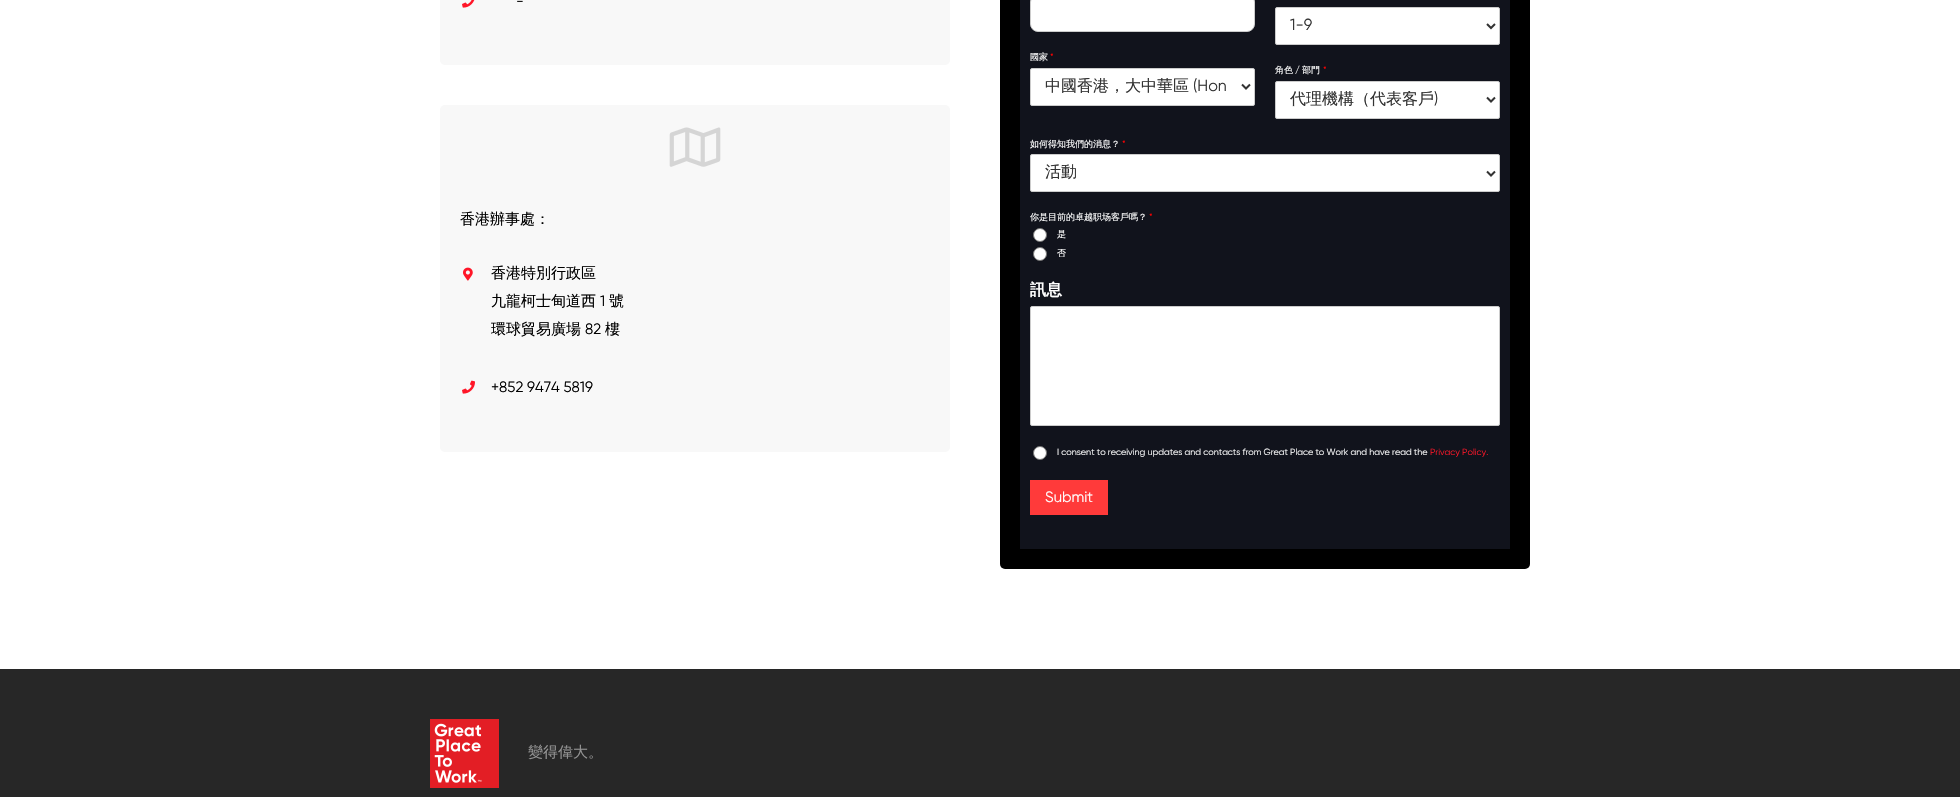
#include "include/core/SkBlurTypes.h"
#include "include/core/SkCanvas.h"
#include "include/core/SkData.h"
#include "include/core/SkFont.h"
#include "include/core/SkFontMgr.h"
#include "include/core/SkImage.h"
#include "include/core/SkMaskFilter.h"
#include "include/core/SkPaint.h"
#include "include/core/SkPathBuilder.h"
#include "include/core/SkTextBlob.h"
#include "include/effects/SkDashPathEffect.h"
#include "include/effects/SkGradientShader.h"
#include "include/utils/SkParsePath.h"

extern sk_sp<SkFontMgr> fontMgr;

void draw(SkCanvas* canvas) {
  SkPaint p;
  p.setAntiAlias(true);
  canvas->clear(SK_ColorWHITE);
  p.setColor(SkColorSetRGB(248, 248, 248));
  canvas->drawRoundRect(SkRect::MakeLTRB(440, -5, 950, 65), 5, 5, p);
  canvas->drawImageRect(SkImages::DeferredFromEncodedData(SkData::MakeFromFileName("images/1.png")), SkRect::MakeLTRB(462, 0, 475, 8), SkSamplingOptions());
  canvas->drawRoundRect(SkRect::MakeLTRB(440, 105, 950, 452), 5, 5, p);
  canvas->drawImageRect(SkImages::DeferredFromEncodedData(SkData::MakeFromFileName("images/2.png")), SkRect::MakeLTRB(669, 127, 721, 167), SkSamplingOptions());
  canvas->drawImageRect(SkImages::DeferredFromEncodedData(SkData::MakeFromFileName("images/3.png")), SkRect::MakeLTRB(463, 267, 473, 281), SkSamplingOptions());
  canvas->drawImageRect(SkImages::DeferredFromEncodedData(SkData::MakeFromFileName("images/4.png")), SkRect::MakeLTRB(462, 380, 475, 394), SkSamplingOptions());
  p.setColor(SK_ColorBLACK);
  canvas->drawRoundRect(SkRect::MakeLTRB(1000, -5, 1530, 569), 5, 5, p);
  p.setColor(SkColorSetRGB(17, 19, 28));
  canvas->drawRect(SkRect::MakeLTRB(1020, 0, 1510, 549), p);
  p.setColor(SK_ColorWHITE);
  canvas->drawRoundRect(SkRect::MakeLTRB(1030.5f, -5.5f, 1254.5f, 31.5f), 7.5f, 7.5f, p);
  p.setStyle(SkPaint::kStroke_Style);
  p.setStrokeWidth(1);
  p.setColor(SkColorSetRGB(204, 204, 204));
  canvas->drawRoundRect(SkRect::MakeLTRB(1030.5f, -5.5f, 1254.5f, 31.5f), 7.5f, 7.5f, p);
  p.setStyle(SkPaint::kFill_Style);
  p.setColor(SK_ColorWHITE);
  canvas->drawRoundRect(SkRect::MakeLTRB(1030.5f, 68.5f, 1254.5f, 105.5f), 1.5f, 1.5f, p);
  p.setStyle(SkPaint::kStroke_Style);
  p.setColor(SkColorSetRGB(204, 204, 204));
  canvas->drawRoundRect(SkRect::MakeLTRB(1030.5f, 68.5f, 1254.5f, 105.5f), 1.5f, 1.5f, p);
  p.setStrokeWidth(2);
  p.setColor(SkColorSetRGB(51, 51, 51));
  canvas->drawPath(SkPathBuilder().moveTo(1242, 84.5f).lineTo(1246, 88.5f).lineTo(1250, 84.5f).detach(), p);
  p.setStyle(SkPaint::kFill_Style);
  p.setColor(SK_ColorWHITE);
  canvas->drawRoundRect(SkRect::MakeLTRB(1275.5f, 7.5f, 1499.5f, 44.5f), 1.5f, 1.5f, p);
  p.setStyle(SkPaint::kStroke_Style);
  p.setStrokeWidth(1);
  p.setColor(SkColorSetRGB(204, 204, 204));
  canvas->drawRoundRect(SkRect::MakeLTRB(1275.5f, 7.5f, 1499.5f, 44.5f), 1.5f, 1.5f, p);
  p.setStrokeWidth(2);
  p.setColor(SkColorSetRGB(51, 51, 51));
  canvas->drawPath(SkPathBuilder().moveTo(1487, 24).lineTo(1491, 28).lineTo(1495, 24).detach(), p);
  p.setStyle(SkPaint::kFill_Style);
  p.setColor(SK_ColorWHITE);
  canvas->drawRoundRect(SkRect::MakeLTRB(1275.5f, 81.5f, 1499.5f, 118.5f), 1.5f, 1.5f, p);
  p.setStyle(SkPaint::kStroke_Style);
  p.setStrokeWidth(1);
  p.setColor(SkColorSetRGB(204, 204, 204));
  canvas->drawRoundRect(SkRect::MakeLTRB(1275.5f, 81.5f, 1499.5f, 118.5f), 1.5f, 1.5f, p);
  p.setStrokeWidth(2);
  p.setColor(SkColorSetRGB(51, 51, 51));
  canvas->drawPath(SkPathBuilder().moveTo(1487, 97.5f).lineTo(1491, 101.5f).lineTo(1495, 97.5f).detach(), p);
  p.setStyle(SkPaint::kFill_Style);
  p.setColor(SK_ColorWHITE);
  canvas->drawRoundRect(SkRect::MakeLTRB(1030.5f, 154.5f, 1499.5f, 191.5f), 1.5f, 1.5f, p);
  p.setStyle(SkPaint::kStroke_Style);
  p.setStrokeWidth(1);
  p.setColor(SkColorSetRGB(204, 204, 204));
  canvas->drawRoundRect(SkRect::MakeLTRB(1030.5f, 154.5f, 1499.5f, 191.5f), 1.5f, 1.5f, p);
  p.setStrokeWidth(2);
  p.setColor(SkColorSetRGB(51, 51, 51));
  canvas->drawPath(SkPathBuilder().moveTo(1487, 171.5f).lineTo(1491, 175.5f).lineTo(1495, 171.5f).detach(), p);
  p.setStyle(SkPaint::kFill_Style);
  p.setColor(SK_ColorWHITE);
  canvas->drawCircle(1040, 235, 6.5f, p);
  p.setStyle(SkPaint::kStroke_Style);
  p.setStrokeWidth(1);
  p.setColor(SkColorSetRGB(118, 118, 118));
  canvas->drawCircle(1040, 235, 6.5f, p);
  p.setStyle(SkPaint::kFill_Style);
  p.setColor(SK_ColorWHITE);
  canvas->drawCircle(1040, 254, 6.5f, p);
  p.setStyle(SkPaint::kStroke_Style);
  p.setColor(SkColorSetRGB(118, 118, 118));
  canvas->drawCircle(1040, 254, 6.5f, p);
  p.setStyle(SkPaint::kFill_Style);
  p.setColor(SK_ColorWHITE);
  canvas->drawRoundRect(SkRect::MakeLTRB(1030.5f, 306.5f, 1499.5f, 425.5f), 1.5f, 1.5f, p);
  p.setStyle(SkPaint::kStroke_Style);
  p.setColor(SkColorSetRGB(204, 204, 204));
  canvas->drawRoundRect(SkRect::MakeLTRB(1030.5f, 306.5f, 1499.5f, 425.5f), 1.5f, 1.5f, p);
  p.setStyle(SkPaint::kFill_Style);
  p.setColor(SK_ColorWHITE);
  canvas->drawCircle(1040, 453, 6.5f, p);
  p.setStyle(SkPaint::kStroke_Style);
  p.setColor(SkColorSetRGB(118, 118, 118));
  canvas->drawCircle(1040, 453, 6.5f, p);
  p.setStyle(SkPaint::kFill_Style);
  p.setColor(SkColorSetRGB(255, 58, 58));
  canvas->drawRect(SkRect::MakeLTRB(1030, 480, 1108, 515), p);
  p.setColor(SkColorSetRGB(39, 39, 39));
  canvas->drawRect(SkRect::MakeLTRB(0, 669, 1960, 797), p);
  canvas->drawImageRect(SkImages::DeferredFromEncodedData(SkData::MakeFromFileName("images/5.png")), SkRect::MakeLTRB(430, 719, 499, 788), SkSamplingOptions());
  SkFont font1(fontMgr->matchFamilyStyle("Gilroy", SkFontStyle::Normal()), 15);
  font1.setSubpixel(true);
  p.setColor(SK_ColorBLACK);
  canvas->drawString("-", 516, 6, font1, p);
  SkFont font2(fontMgr->matchFamilyStyle("WenQuanYi Zen Hei", SkFontStyle(500, SkFontStyle::kNormal_Width, SkFontStyle::kUpright_Slant)), 15);
  font2.setSubpixel(true);
  canvas->drawString("香港辦事處：", 460, 224, font2, p);
  canvas->drawString("香港特別行政區", 491, 278, font2, p);
  canvas->drawString("九龍柯士甸道西", 491, 306, font2, p);
  canvas->drawString("1", 600, 306, font1, p);
  canvas->drawString("號", 609, 306, font2, p);
  canvas->drawString("環球貿易廣場", 491, 334, font2, p);
  canvas->drawString("82", 585, 334, font1, p);
  canvas->drawString("樓", 605, 334, font2, p);
  canvas->drawString("+852 9474 5819", 491, 392, font1, p);
  SkFont font3(fontMgr->matchFamilyStyle("WenQuanYi Zen Hei", SkFontStyle(500, SkFontStyle::kNormal_Width, SkFontStyle::kUpright_Slant)), 9);
  font3.setSubpixel(true);
  p.setColor(SK_ColorWHITE);
  canvas->drawString("國家", 1030, 60, font3, p);
  SkFont font4(fontMgr->matchFamilyStyle("Gilroy", SkFontStyle::Normal()), 9);
  font4.setSubpixel(true);
  p.setColor(SkColorSetRGB(255, 0, 0));
  canvas->drawString("*", 1050, 60, font4, p);
  canvas->save();
  canvas->clipRect(SkRect::MakeLTRB(1045, 78, 1228, 96));
  SkFont font5(fontMgr->matchFamilyStyle("WenQuanYi Zen Hei", SkFontStyle(500, SkFontStyle::kNormal_Width, SkFontStyle::kUpright_Slant)), 16);
  font5.setSubpixel(true);
  p.setColor(SkColorSetRGB(51, 51, 51));
  canvas->drawString("中國香港，大中華區", 1045, 91, font5, p);
  canvas->restore();
  SkFont font6(fontMgr->matchFamilyStyle("Gilroy", SkFontStyle::Normal()), 16);
  font6.setSubpixel(true);
  canvas->drawString("(Hon", 1193, 91, font6, p);
  canvas->drawString("1-9", 1290, 30, font6, p);
  p.setColor(SK_ColorWHITE);
  canvas->drawString("角色", 1275, 73, font3, p);
  canvas->drawString("/", 1295, 73, font4, p);
  canvas->drawString("部門", 1302, 73, font3, p);
  p.setColor(SkColorSetRGB(255, 0, 0));
  canvas->drawString("*", 1323, 73, font4, p);
  canvas->save();
  canvas->clipRect(SkRect::MakeLTRB(1290, 91, 1473, 109));
  p.setColor(SkColorSetRGB(51, 51, 51));
  canvas->drawString("代理機構（代表客戶", 1290, 104, font5, p);
  canvas->restore();
  canvas->drawString(")", 1434, 104, font6, p);
  p.setColor(SK_ColorWHITE);
  canvas->drawString("如何得知我們的消息？", 1030, 147, font3, p);
  p.setColor(SkColorSetRGB(255, 0, 0));
  canvas->drawString("*", 1122, 147, font4, p);
  p.setColor(SkColorSetRGB(51, 51, 51));
  canvas->drawString("活動", 1045, 177, font5, p);
  p.setColor(SK_ColorWHITE);
  canvas->drawString("你是目前的卓越职场客戶嗎？", 1030, 220, font3, p);
  p.setColor(SkColorSetRGB(255, 0, 0));
  canvas->drawString("*", 1149, 220, font4, p);
  p.setColor(SK_ColorWHITE);
  canvas->drawString("是", 1057, 237, font3, p);
  canvas->drawString("否", 1057, 256, font3, p);
  SkFont font7(fontMgr->matchFamilyStyle("WenQuanYi Zen Hei", SkFontStyle::Bold()), 16);
  font7.setSubpixel(true);
  canvas->drawString("訊息", 1030, 295, font7, p);
  canvas->drawString("I consent to receiving updates and contacts from Great Place to Work and have read the", 1057, 455, font4, p);
  p.setColor(SkColorSetRGB(255, 22, 40));
  canvas->drawString("Privacy Policy.", 1430, 455, font4, p);
  p.setColor(SK_ColorWHITE);
  canvas->drawString("Submit", 1045, 502, font1, p);
  p.setColor(SkColorSetRGB(147, 147, 147));
  canvas->drawString("變得偉大。", 528, 757, font2, p);
}
